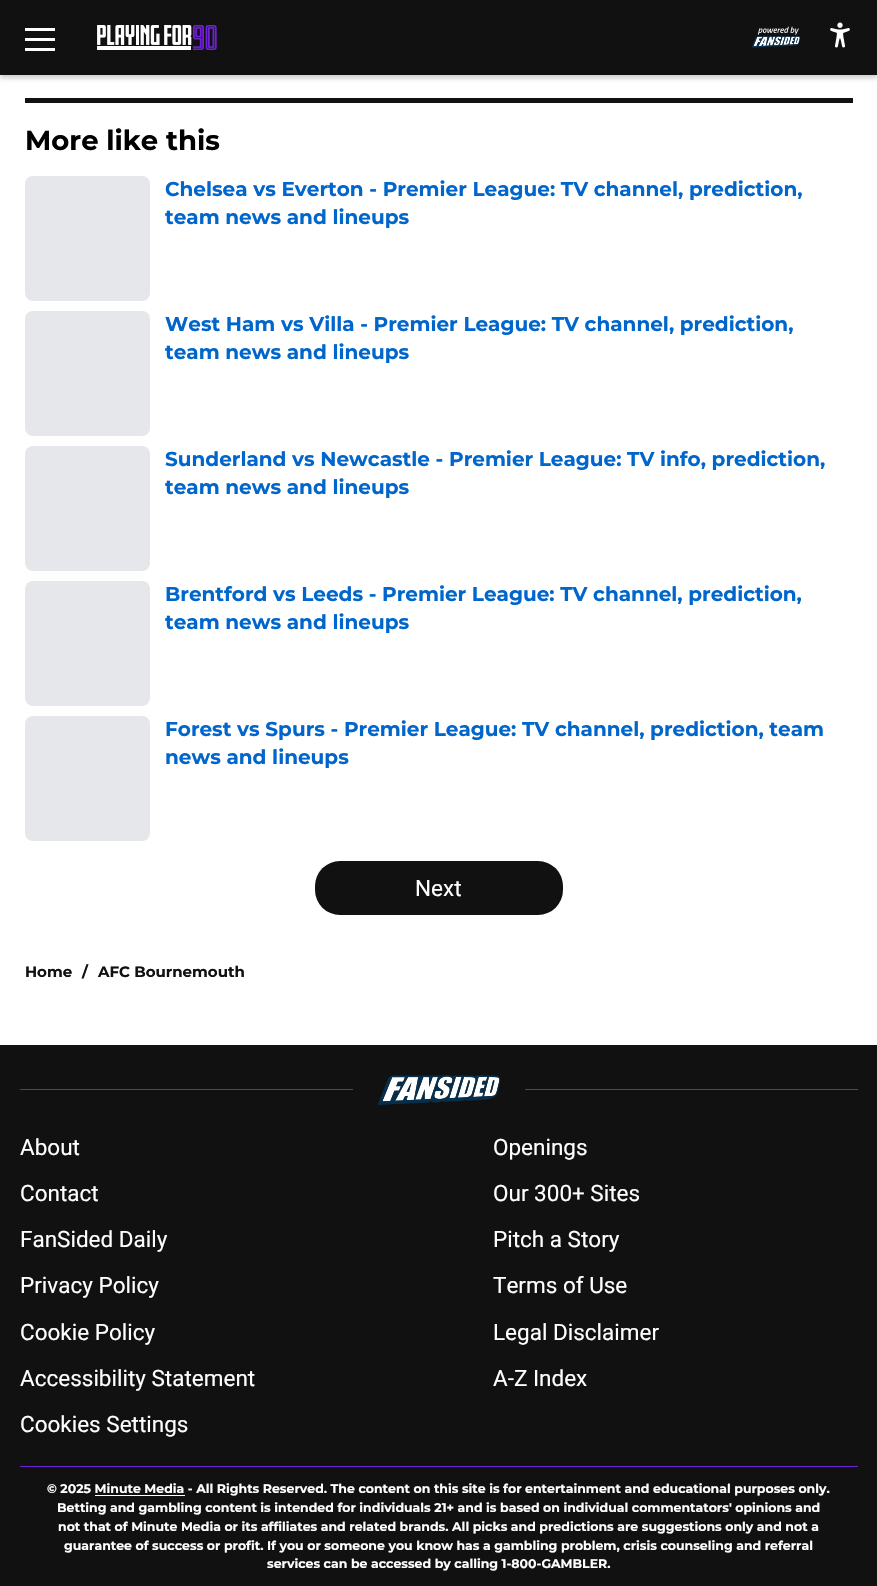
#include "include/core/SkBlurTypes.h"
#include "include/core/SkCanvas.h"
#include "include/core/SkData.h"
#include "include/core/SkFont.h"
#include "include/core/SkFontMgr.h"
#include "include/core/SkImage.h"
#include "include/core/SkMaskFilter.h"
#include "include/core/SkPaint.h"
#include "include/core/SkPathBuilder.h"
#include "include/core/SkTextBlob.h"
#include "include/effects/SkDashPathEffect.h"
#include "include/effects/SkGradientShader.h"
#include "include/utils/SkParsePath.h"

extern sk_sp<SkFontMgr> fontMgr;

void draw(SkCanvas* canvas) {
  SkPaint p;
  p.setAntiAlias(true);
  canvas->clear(SK_ColorWHITE);
  p.setColor(SkColorSetARGB(51, 0, 0, 0));
  p.setMaskFilter(SkMaskFilter::MakeBlur(kNormal_SkBlurStyle, 2.5f));
  canvas->drawRect(SkRect::MakeLTRB(0, 3, 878, 78), p);
  p.setMaskFilter(nullptr);
  p.setColor(SkColorSetRGB(17, 17, 17));
  canvas->drawRect(SkRect::MakeLTRB(0, 0, 877, 75), p);
  p.setColor(SK_ColorWHITE);
  canvas->drawRect(SkRect::MakeLTRB(25, 28, 55, 31), p);
  canvas->drawRect(SkRect::MakeLTRB(25, 38, 55, 41), p);
  canvas->drawRect(SkRect::MakeLTRB(25, 48, 55, 51), p);
  canvas->drawImageRect(SkImages::DeferredFromEncodedData(SkData::MakeFromFileName("images/1.png")), SkRect::MakeLTRB(97, 25, 217, 50), SkSamplingOptions());
  canvas->drawImageRect(SkImages::DeferredFromEncodedData(SkData::MakeFromFileName("images/2.png")), SkRect::MakeLTRB(751, 26, 801, 48), SkSamplingOptions());
  canvas->drawImageRect(SkImages::DeferredFromEncodedData(SkData::MakeFromFileName("images/3.png")), SkRect::MakeLTRB(830, 22, 850, 48), SkSamplingOptions());
  p.setColor(SkColorSetRGB(17, 17, 17));
  canvas->drawRect(SkRect::MakeLTRB(25, 98, 853, 103), p);
  p.setColor(SkColorSetRGB(229, 231, 235));
  canvas->drawRoundRect(SkRect::MakeLTRB(25, 176, 150, 301), 8, 8, p);
  canvas->drawRoundRect(SkRect::MakeLTRB(25, 311, 150, 436), 8, 8, p);
  canvas->drawRoundRect(SkRect::MakeLTRB(25, 446, 150, 571), 8, 8, p);
  canvas->drawRoundRect(SkRect::MakeLTRB(25, 581, 150, 706), 8, 8, p);
  canvas->drawRoundRect(SkRect::MakeLTRB(25, 716, 150, 841), 8, 8, p);
  p.setColor(SkColorSetRGB(17, 17, 17));
  canvas->drawRoundRect(SkRect::MakeLTRB(315, 861, 563, 915), 25, 25, p);
  canvas->drawRect(SkRect::MakeLTRB(0, 1045, 877, 1586), p);
  p.setColor(SkColorSetRGB(110, 32, 211));
  canvas->drawRect(SkRect::MakeLTRB(20, 1089, 353, 1090), p);
  canvas->drawImageRect(SkImages::DeferredFromEncodedData(SkData::MakeFromFileName("images/4.png")), SkRect::MakeLTRB(378, 1075, 500, 1105), SkSamplingOptions());
  canvas->drawRect(SkRect::MakeLTRB(525, 1089, 858, 1090), p);
  canvas->drawRect(SkRect::MakeLTRB(20, 1466, 858, 1467), p);
  p.setColor(SK_ColorWHITE);
  canvas->drawRect(SkRect::MakeLTRB(95, 1495, 185, 1496), p);
  SkFont font1(fontMgr->matchFamilyStyle("Montserrat", SkFontStyle(100, SkFontStyle::kNormal_Width, SkFontStyle::kUpright_Slant)), 27.5f);
  font1.setSubpixel(true);
  p.setColor(SK_ColorBLACK);
  canvas->drawString("More like this", 25, 150, font1, p);
  SkFont font2(fontMgr->matchFamilyStyle("Montserrat", SkFontStyle(100, SkFontStyle::kNormal_Width, SkFontStyle::kUpright_Slant)), 20);
  font2.setSubpixel(true);
  p.setColor(SkColorSetRGB(0, 102, 204));
  canvas->drawString("Chelsea vs Everton - Premier League: TV channel, prediction,", 165, 196, font2, p);
  canvas->drawString("team news and lineups", 165, 224, font2, p);
  canvas->drawString("West Ham vs Villa - Premier League: TV channel, prediction,", 165, 331, font2, p);
  canvas->drawString("team news and lineups", 165, 359, font2, p);
  canvas->drawString("Sunderland vs Newcastle - Premier League: TV info, prediction,", 165, 466, font2, p);
  canvas->drawString("team news and lineups", 165, 494, font2, p);
  canvas->drawString("Brentford vs Leeds - Premier League: TV channel, prediction,", 165, 601, font2, p);
  canvas->drawString("team news and lineups", 165, 629, font2, p);
  canvas->drawString("Forest vs Spurs - Premier League: TV channel, prediction, team", 165, 736, font2, p);
  canvas->drawString("news and lineups", 165, 764, font2, p);
  SkFont font3(fontMgr->matchFamilyStyle("Roboto", SkFontStyle::Normal()), 22.5f);
  font3.setSubpixel(true);
  p.setColor(SK_ColorWHITE);
  canvas->drawString("Next", 415, 896, font3, p);
  SkFont font4(fontMgr->matchFamilyStyle("Montserrat", SkFontStyle(100, SkFontStyle::kNormal_Width, SkFontStyle::kUpright_Slant)), 15);
  font4.setSubpixel(true);
  p.setColor(SkColorSetRGB(17, 17, 17));
  canvas->drawString("Home", 25, 977, font4, p);
  canvas->drawString("/", 82, 977, font4, p);
  canvas->drawString("AFC Bournemouth", 98, 977, font4, p);
  p.setColor(SK_ColorWHITE);
  canvas->drawString("About", 20, 1155, font3, p);
  canvas->drawString("Openings", 493, 1155, font3, p);
  canvas->drawString("Contact", 20, 1201, font3, p);
  canvas->drawString("Our 300+ Sites", 493, 1201, font3, p);
  canvas->drawString("FanSided Daily", 20, 1247, font3, p);
  canvas->drawString("Pitch a Story", 493, 1247, font3, p);
  canvas->drawString("Privacy Policy", 20, 1293, font3, p);
  canvas->drawString("Terms of Use", 493, 1293, font3, p);
  canvas->drawString("Cookie Policy", 20, 1340, font3, p);
  canvas->drawString("Legal Disclaimer", 493, 1340, font3, p);
  canvas->drawString("Accessibility Statement", 20, 1386, font3, p);
  canvas->drawString("A-Z Index", 493, 1386, font3, p);
  canvas->drawString("Cookies Settings", 20, 1432, font3, p);
  SkFont font5(fontMgr->matchFamilyStyle("Montserrat", SkFontStyle(100, SkFontStyle::kNormal_Width, SkFontStyle::kUpright_Slant)), 12.5f);
  font5.setSubpixel(true);
  canvas->drawString("© 2025 Minute Media - All Rights Reserved. The content on this site is for entertainment and educational purposes only.", 47, 1493, font5, p);
  canvas->drawString("Betting and gambling content is intended for individuals 21+ and is based on individual commentators' opinions and", 57, 1512, font5, p);
  canvas->drawString("not that of Minute Media or its affiliates and related brands. All picks and predictions are suggestions only and not a", 58, 1531, font5, p);
  canvas->drawString("guarantee of success or profit. If you or someone you know has a gambling problem, crisis counseling and referral", 64, 1550, font5, p);
  canvas->drawString("services can be accessed by calling 1-800-GAMBLER.", 267, 1568, font5, p);
}
